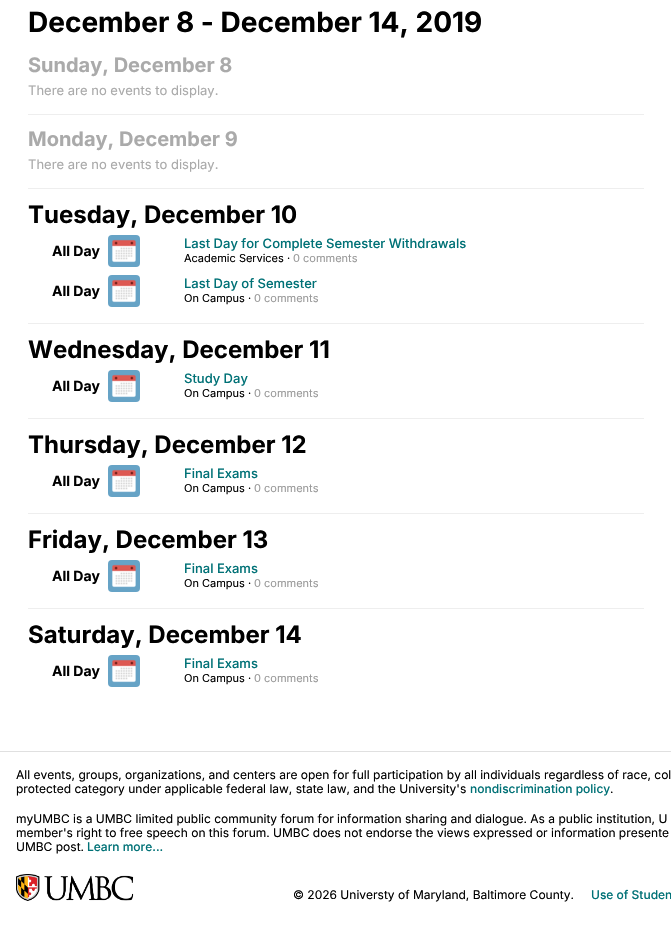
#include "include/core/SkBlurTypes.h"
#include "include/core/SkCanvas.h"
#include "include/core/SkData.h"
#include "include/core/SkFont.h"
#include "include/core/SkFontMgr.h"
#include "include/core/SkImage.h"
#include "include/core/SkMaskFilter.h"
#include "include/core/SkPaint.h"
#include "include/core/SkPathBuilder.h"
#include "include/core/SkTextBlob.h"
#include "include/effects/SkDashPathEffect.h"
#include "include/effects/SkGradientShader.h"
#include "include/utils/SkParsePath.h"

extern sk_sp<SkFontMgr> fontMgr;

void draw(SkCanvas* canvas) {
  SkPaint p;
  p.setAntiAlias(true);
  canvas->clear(SK_ColorWHITE);
  p.setColor(SkColorSetRGB(238, 238, 238));
  canvas->drawRect(SkRect::MakeLTRB(28, 114, 644, 115), p);
  canvas->drawRect(SkRect::MakeLTRB(28, 188, 644, 189), p);
  canvas->drawImageRect(SkImages::DeferredFromEncodedData(SkData::MakeFromFileName("images/1.png")), SkRect::MakeLTRB(108, 235, 140, 267), SkSamplingOptions());
  canvas->drawImageRect(SkImages::DeferredFromEncodedData(SkData::MakeFromFileName("images/1.png")), SkRect::MakeLTRB(108, 275, 140, 307), SkSamplingOptions());
  canvas->drawRect(SkRect::MakeLTRB(28, 323, 644, 324), p);
  canvas->drawImageRect(SkImages::DeferredFromEncodedData(SkData::MakeFromFileName("images/1.png")), SkRect::MakeLTRB(108, 370, 140, 402), SkSamplingOptions());
  canvas->drawRect(SkRect::MakeLTRB(28, 418, 644, 419), p);
  canvas->drawImageRect(SkImages::DeferredFromEncodedData(SkData::MakeFromFileName("images/1.png")), SkRect::MakeLTRB(108, 465, 140, 497), SkSamplingOptions());
  canvas->drawRect(SkRect::MakeLTRB(28, 513, 644, 514), p);
  canvas->drawImageRect(SkImages::DeferredFromEncodedData(SkData::MakeFromFileName("images/1.png")), SkRect::MakeLTRB(108, 560, 140, 592), SkSamplingOptions());
  canvas->drawRect(SkRect::MakeLTRB(28, 608, 644, 609), p);
  canvas->drawImageRect(SkImages::DeferredFromEncodedData(SkData::MakeFromFileName("images/1.png")), SkRect::MakeLTRB(108, 655, 140, 687), SkSamplingOptions());
  p.setColor(SkColorSetRGB(224, 224, 224));
  canvas->drawRect(SkRect::MakeLTRB(0, 751, 671, 752), p);
  canvas->drawImageRect(SkImages::DeferredFromEncodedData(SkData::MakeFromFileName("images/2.png")), SkRect::MakeLTRB(16, 874, 134, 901), SkSamplingOptions());
  SkFont font1(fontMgr->matchFamilyStyle("Inter", SkFontStyle::Bold()), 28);
  font1.setSubpixel(true);
  p.setColor(SK_ColorBLACK);
  canvas->drawString("December 8 - December 14, 2019", 28, 32, font1, p);
  SkFont font2(fontMgr->matchFamilyStyle("Inter", SkFontStyle::Bold()), 20);
  font2.setSubpixel(true);
  p.setColor(SkColorSetRGB(170, 170, 170));
  canvas->drawString("Sunday, December 8", 28, 72, font2, p);
  SkFont font3(fontMgr->matchFamilyStyle("Inter", SkFontStyle::Normal()), 13);
  font3.setSubpixel(true);
  canvas->drawString("There are no events to display.", 28, 95, font3, p);
  canvas->drawString("Monday, December 9", 28, 146, font2, p);
  canvas->drawString("There are no events to display.", 28, 169, font3, p);
  SkFont font4(fontMgr->matchFamilyStyle("Inter", SkFontStyle::Bold()), 24);
  font4.setSubpixel(true);
  p.setColor(SK_ColorBLACK);
  canvas->drawString("Tuesday, December 10", 28, 223, font4, p);
  SkFont font5(fontMgr->matchFamilyStyle("Inter", SkFontStyle::Bold()), 14);
  font5.setSubpixel(true);
  canvas->drawString("All Day", 52, 256, font5, p);
  SkFont font6(fontMgr->matchFamilyStyle("Inter", SkFontStyle(500, SkFontStyle::kNormal_Width, SkFontStyle::kUpright_Slant)), 13);
  font6.setSubpixel(true);
  p.setColor(SkColorSetRGB(0, 113, 118));
  canvas->drawString("Last Day for Complete Semester Withdrawals", 184, 248, font6, p);
  SkFont font7(fontMgr->matchFamilyStyle("Inter", SkFontStyle::Normal()), 11);
  font7.setSubpixel(true);
  p.setColor(SK_ColorBLACK);
  canvas->drawString("Academic Services ·", 184, 262, font7, p);
  p.setColor(SkColorSetRGB(153, 153, 153));
  canvas->drawString("0 comments", 293, 262, font7, p);
  p.setColor(SK_ColorBLACK);
  canvas->drawString("All Day", 52, 296, font5, p);
  p.setColor(SkColorSetRGB(0, 113, 118));
  canvas->drawString("Last Day of Semester", 184, 288, font6, p);
  p.setColor(SK_ColorBLACK);
  canvas->drawString("On Campus ·", 184, 302, font7, p);
  p.setColor(SkColorSetRGB(153, 153, 153));
  canvas->drawString("0 comments", 254, 302, font7, p);
  p.setColor(SK_ColorBLACK);
  canvas->drawString("Wednesday, December 11", 28, 358, font4, p);
  canvas->drawString("All Day", 52, 391, font5, p);
  p.setColor(SkColorSetRGB(0, 113, 118));
  canvas->drawString("Study Day", 184, 383, font6, p);
  p.setColor(SK_ColorBLACK);
  canvas->drawString("On Campus ·", 184, 397, font7, p);
  p.setColor(SkColorSetRGB(153, 153, 153));
  canvas->drawString("0 comments", 254, 397, font7, p);
  p.setColor(SK_ColorBLACK);
  canvas->drawString("Thursday, December 12", 28, 453, font4, p);
  canvas->drawString("All Day", 52, 486, font5, p);
  p.setColor(SkColorSetRGB(0, 113, 118));
  canvas->drawString("Final Exams", 184, 478, font6, p);
  p.setColor(SK_ColorBLACK);
  canvas->drawString("On Campus ·", 184, 492, font7, p);
  p.setColor(SkColorSetRGB(153, 153, 153));
  canvas->drawString("0 comments", 254, 492, font7, p);
  p.setColor(SK_ColorBLACK);
  canvas->drawString("Friday, December 13", 28, 548, font4, p);
  canvas->drawString("All Day", 52, 581, font5, p);
  p.setColor(SkColorSetRGB(0, 113, 118));
  canvas->drawString("Final Exams", 184, 573, font6, p);
  p.setColor(SK_ColorBLACK);
  canvas->drawString("On Campus ·", 184, 587, font7, p);
  p.setColor(SkColorSetRGB(153, 153, 153));
  canvas->drawString("0 comments", 254, 587, font7, p);
  p.setColor(SK_ColorBLACK);
  canvas->drawString("Saturday, December 14", 28, 643, font4, p);
  canvas->drawString("All Day", 52, 676, font5, p);
  p.setColor(SkColorSetRGB(0, 113, 118));
  canvas->drawString("Final Exams", 184, 668, font6, p);
  p.setColor(SK_ColorBLACK);
  canvas->drawString("On Campus ·", 184, 682, font7, p);
  p.setColor(SkColorSetRGB(153, 153, 153));
  canvas->drawString("0 comments", 254, 682, font7, p);
  SkFont font8(fontMgr->matchFamilyStyle("Inter", SkFontStyle::Normal()), 12);
  font8.setSubpixel(true);
  p.setColor(SK_ColorBLACK);
  canvas->drawString("All events, groups, organizations, and centers are open for full participation by all individuals regardless of race, col", 16, 779, font8, p);
  canvas->drawString("protected category under applicable federal law, state law, and the University's", 16, 793, font8, p);
  SkFont font9(fontMgr->matchFamilyStyle("Inter", SkFontStyle(500, SkFontStyle::kNormal_Width, SkFontStyle::kUpright_Slant)), 12);
  font9.setSubpixel(true);
  p.setColor(SkColorSetRGB(0, 113, 118));
  canvas->drawString("nondiscrimination policy", 470, 793, font9, p);
  p.setColor(SK_ColorBLACK);
  canvas->drawString(".", 610, 793, font8, p);
  canvas->drawString("myUMBC is a UMBC limited public community forum for information sharing and dialogue. As a public institution, U", 16, 823, font8, p);
  canvas->drawString("member's right to free speech on this forum. UMBC does not endorse the views expressed or information presente", 16, 837, font8, p);
  canvas->drawString("UMBC post.", 16, 851, font8, p);
  p.setColor(SkColorSetRGB(0, 113, 118));
  canvas->drawString("Learn more...", 87, 851, font9, p);
  p.setColor(SK_ColorBLACK);
  canvas->drawString("© 2026 Universty of Maryland, Baltimore County.", 293, 899, font8, p);
  p.setColor(SkColorSetRGB(0, 113, 118));
  canvas->drawString("Use of Studen", 591, 899, font9, p);
}
